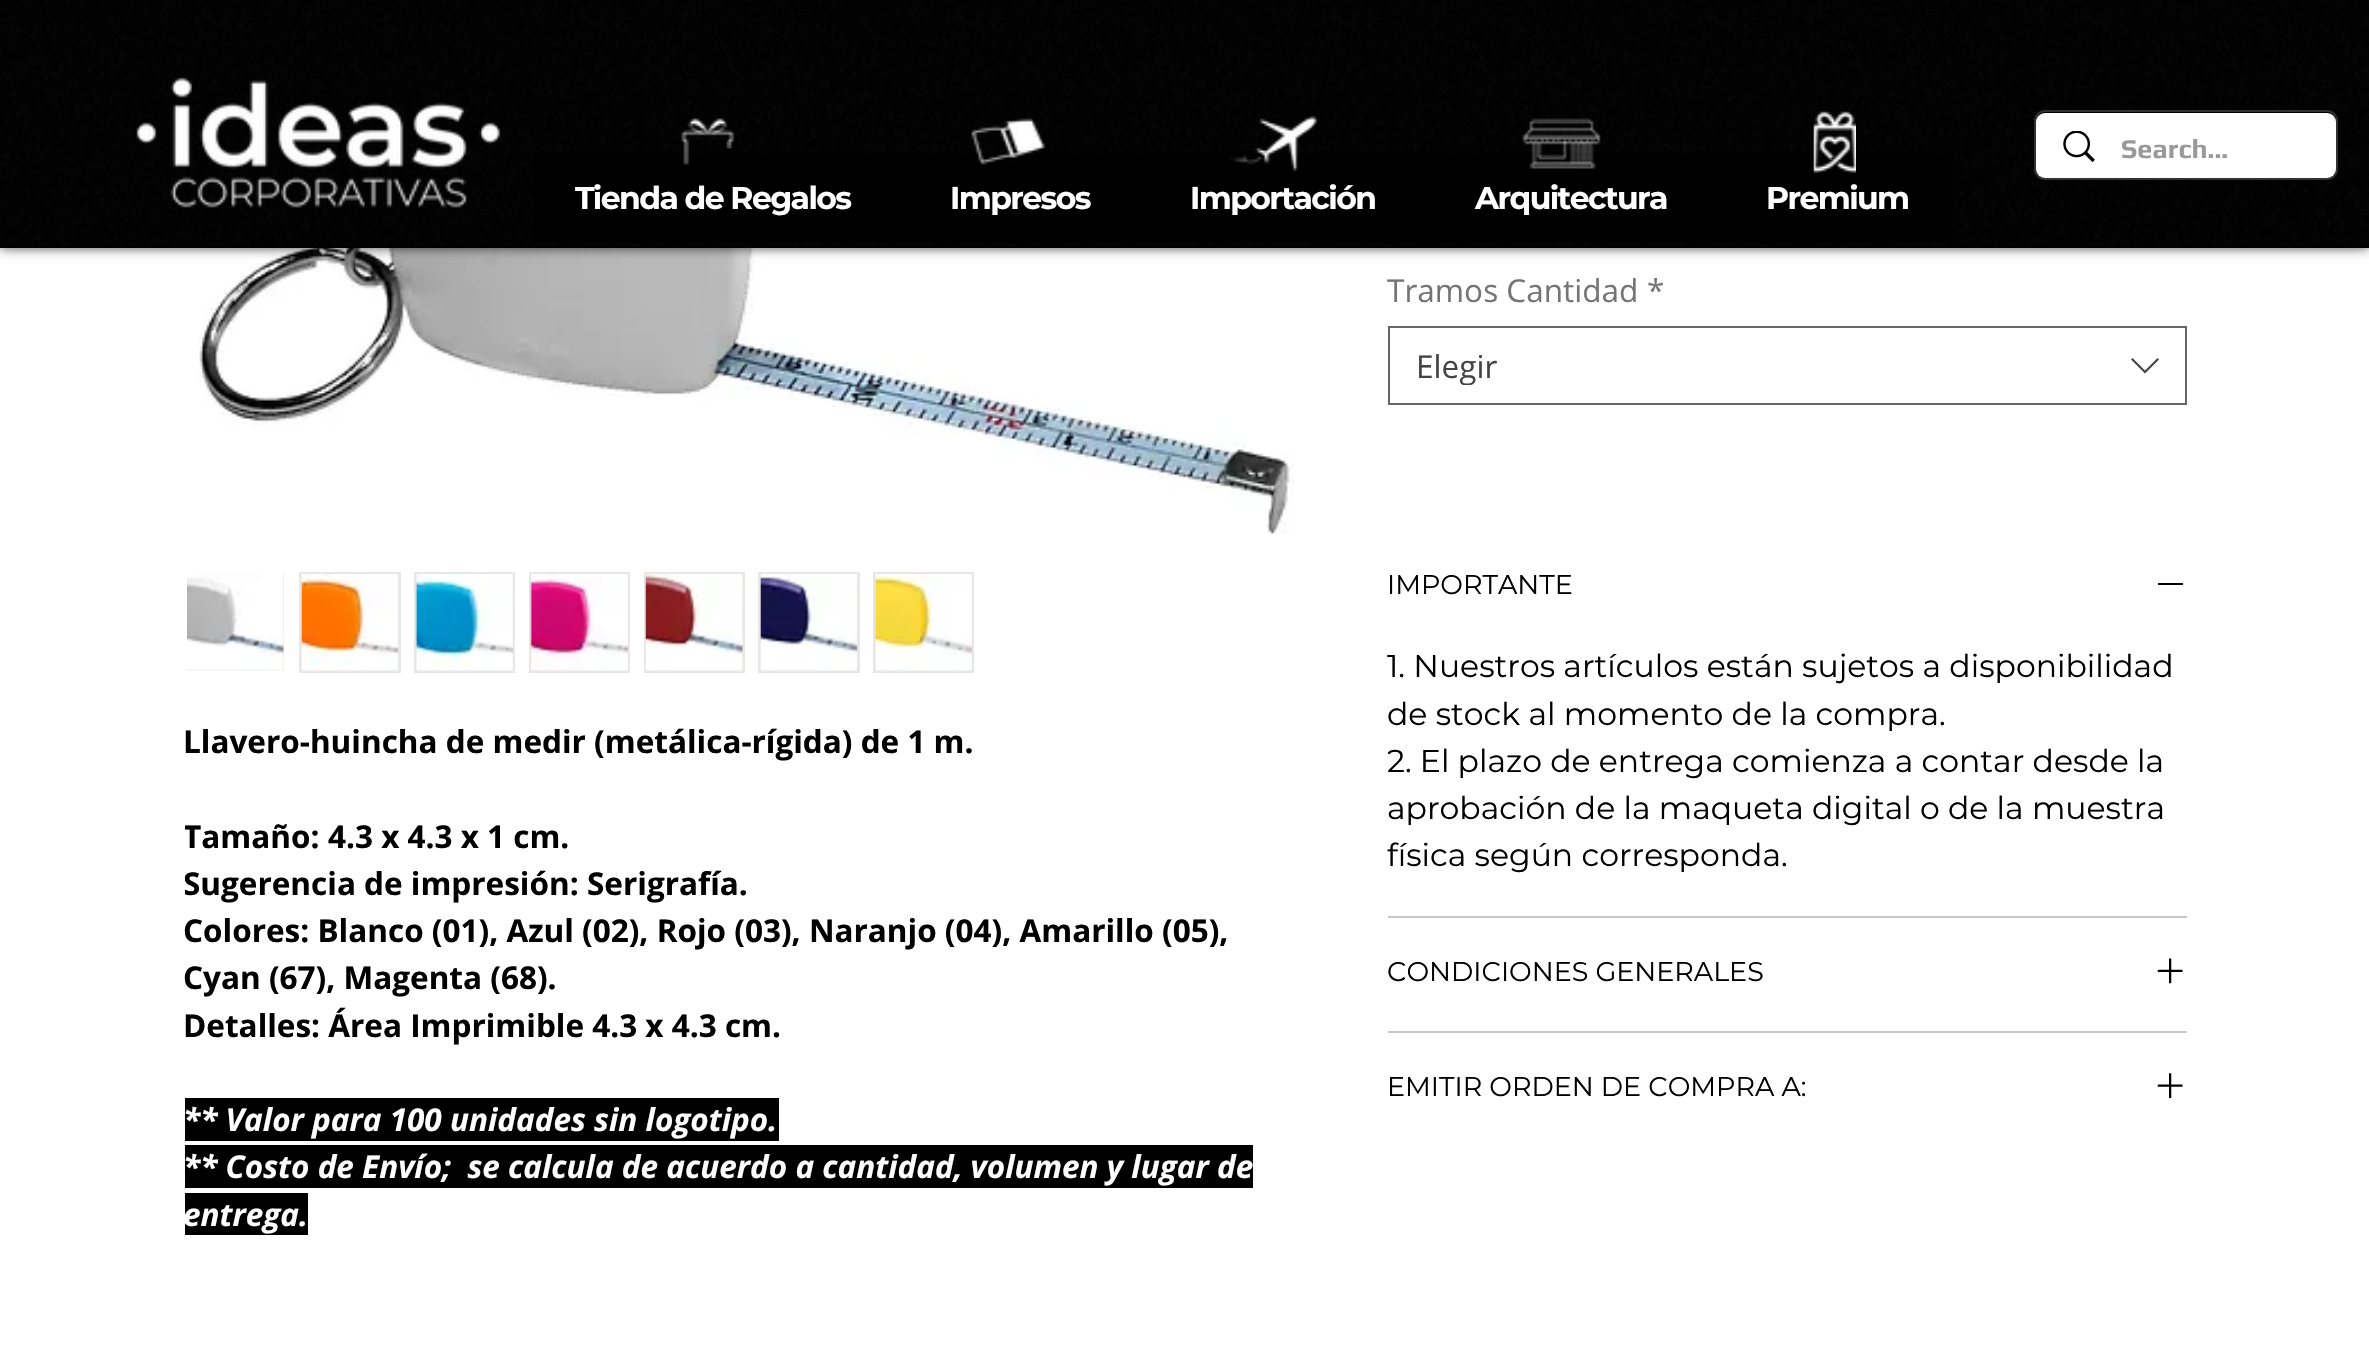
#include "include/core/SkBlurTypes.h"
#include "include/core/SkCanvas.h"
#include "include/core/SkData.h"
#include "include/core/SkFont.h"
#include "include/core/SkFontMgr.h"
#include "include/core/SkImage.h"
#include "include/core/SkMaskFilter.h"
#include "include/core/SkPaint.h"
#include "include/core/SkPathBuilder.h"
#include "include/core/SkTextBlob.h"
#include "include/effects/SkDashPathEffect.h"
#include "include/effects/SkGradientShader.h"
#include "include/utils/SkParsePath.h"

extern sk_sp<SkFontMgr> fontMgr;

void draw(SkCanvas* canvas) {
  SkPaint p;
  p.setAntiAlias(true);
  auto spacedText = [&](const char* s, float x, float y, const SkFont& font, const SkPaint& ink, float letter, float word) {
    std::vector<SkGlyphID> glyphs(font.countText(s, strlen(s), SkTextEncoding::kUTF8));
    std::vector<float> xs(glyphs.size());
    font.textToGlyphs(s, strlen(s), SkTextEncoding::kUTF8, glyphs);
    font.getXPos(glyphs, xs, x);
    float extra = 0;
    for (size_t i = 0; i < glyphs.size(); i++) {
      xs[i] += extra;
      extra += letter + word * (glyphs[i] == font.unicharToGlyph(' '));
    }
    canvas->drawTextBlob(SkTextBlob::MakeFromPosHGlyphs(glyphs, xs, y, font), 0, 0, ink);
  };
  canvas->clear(SK_ColorWHITE);
  canvas->drawImageRect(SkImages::DeferredFromEncodedData(SkData::MakeFromFileName("images/9.png")), SkRect::MakeLTRB(196, 248, 1294, 534), SkSamplingOptions());
  p.setColor(SkColorSetARGB(179, 0, 0, 0));
  p.setMaskFilter(SkMaskFilter::MakeBlur(kNormal_SkBlurStyle, 5.5f));
  canvas->drawRect(SkRect::MakeLTRB(0, 0, 2369, 248), p);
  p.setMaskFilter(nullptr);
  p.setColor(SK_ColorBLACK);
  canvas->drawRect(SkRect::MakeLTRB(0, 0, 2369, 248), p);
  canvas->drawImageRect(SkImages::DeferredFromEncodedData(SkData::MakeFromFileName("images/1.png")), SkRect::MakeLTRB(0, 0, 2369, 247), SkSamplingOptions());
  canvas->drawImageRect(SkImages::DeferredFromEncodedData(SkData::MakeFromFileName("images/2.png")), SkRect::MakeLTRB(136, 77, 501, 208), SkSamplingOptions());
  canvas->drawRect(SkRect::MakeLTRB(533, 153, 1953, 243), p);
  canvas->drawImageRect(SkImages::DeferredFromEncodedData(SkData::MakeFromFileName("images/3.png")), SkRect::MakeLTRB(681, 118, 735, 165), SkSamplingOptions());
  canvas->drawImageRect(SkImages::DeferredFromEncodedData(SkData::MakeFromFileName("images/4.png")), SkRect::MakeLTRB(971, 118, 1046, 165), SkSamplingOptions());
  canvas->drawImageRect(SkImages::DeferredFromEncodedData(SkData::MakeFromFileName("images/5.png")), SkRect::MakeLTRB(1230, 116, 1318, 172), SkSamplingOptions());
  canvas->drawImageRect(SkImages::DeferredFromEncodedData(SkData::MakeFromFileName("images/6.png")), SkRect::MakeLTRB(1522, 118, 1601, 169), SkSamplingOptions());
  canvas->drawImageRect(SkImages::DeferredFromEncodedData(SkData::MakeFromFileName("images/7.png")), SkRect::MakeLTRB(1813, 111, 1856, 173), SkSamplingOptions());
  p.setStyle(SkPaint::kStroke_Style);
  p.setStrokeWidth(2);
  p.setColor(SkColorSetRGB(50, 50, 50));
  canvas->drawRoundRect(SkRect::MakeLTRB(2035, 111, 2337, 179), 10, 10, p);
  p.setStyle(SkPaint::kFill_Style);
  p.setColor(SK_ColorWHITE);
  canvas->drawRoundRect(SkRect::MakeLTRB(2036, 113, 2336, 178), 9, 9, p);
  canvas->drawImageRect(SkImages::DeferredFromEncodedData(SkData::MakeFromFileName("images/8.png")), SkRect::MakeLTRB(2063, 131, 2095, 162), SkSamplingOptions());
  p.setColor(SkColorSetRGB(232, 230, 230));
  canvas->drawRect(SkRect::MakeLTRB(187, 574, 284, 671), p);
  canvas->drawImageRect(SkImages::DeferredFromEncodedData(SkData::MakeFromFileName("images/10.png")), SkRect::MakeLTRB(187, 574, 284, 671), SkSamplingOptions());
  canvas->drawRect(SkRect::MakeLTRB(299, 572, 401, 673), p);
  canvas->drawImageRect(SkImages::DeferredFromEncodedData(SkData::MakeFromFileName("images/11.png")), SkRect::MakeLTRB(301, 574, 399, 671), SkSamplingOptions());
  canvas->drawRect(SkRect::MakeLTRB(414, 572, 515, 673), p);
  canvas->drawImageRect(SkImages::DeferredFromEncodedData(SkData::MakeFromFileName("images/12.png")), SkRect::MakeLTRB(415, 574, 513, 671), SkSamplingOptions());
  canvas->drawRect(SkRect::MakeLTRB(529, 572, 630, 673), p);
  canvas->drawImageRect(SkImages::DeferredFromEncodedData(SkData::MakeFromFileName("images/13.png")), SkRect::MakeLTRB(530, 574, 628, 671), SkSamplingOptions());
  canvas->drawRect(SkRect::MakeLTRB(644, 572, 745, 673), p);
  canvas->drawImageRect(SkImages::DeferredFromEncodedData(SkData::MakeFromFileName("images/14.png")), SkRect::MakeLTRB(645, 574, 743, 671), SkSamplingOptions());
  canvas->drawRect(SkRect::MakeLTRB(758, 572, 860, 673), p);
  canvas->drawImageRect(SkImages::DeferredFromEncodedData(SkData::MakeFromFileName("images/15.png")), SkRect::MakeLTRB(760, 574, 858, 671), SkSamplingOptions());
  canvas->drawRect(SkRect::MakeLTRB(873, 572, 974, 673), p);
  canvas->drawImageRect(SkImages::DeferredFromEncodedData(SkData::MakeFromFileName("images/16.png")), SkRect::MakeLTRB(874, 574, 972, 671), SkSamplingOptions());
  p.setColor(SK_ColorBLACK);
  canvas->drawRect(SkRect::MakeLTRB(185, 1098, 779, 1141), p);
  canvas->drawRect(SkRect::MakeLTRB(185, 1145, 1253, 1188), p);
  canvas->drawRect(SkRect::MakeLTRB(185, 1193, 308, 1235), p);
  p.setStyle(SkPaint::kStroke_Style);
  p.setColor(SkColorSetRGB(102, 102, 102));
  canvas->drawRect(SkRect::MakeLTRB(1389, 327, 2186, 404), p);
  p.setStyle(SkPaint::kFill_Style);
  p.setColor(SkColorSetRGB(68, 68, 68));
  canvas->drawPath(SkPathBuilder(SkPathFillType::kEvenOdd).moveTo(2157.5f, 358).lineTo(2159, 359.5f).lineTo(2145, 373.5f).lineTo(2131, 359.5f).lineTo(2132.5f, 358).lineTo(2145, 370.5f).close().detach(), p);
  p.setColor(SkColorSetRGB(200, 200, 200));
  canvas->drawRect(SkRect::MakeLTRB(1388, 916, 2187, 918), p);
  p.setColor(SK_ColorBLACK);
  canvas->drawRect(SkRect::MakeLTRB(2158, 583, 2183, 585), p);
  p.setColor(SkColorSetRGB(200, 200, 200));
  canvas->drawRect(SkRect::MakeLTRB(1388, 1031, 2187, 1033), p);
  canvas->drawImageRect(SkImages::DeferredFromEncodedData(SkData::MakeFromFileName("images/17.png")), SkRect::MakeLTRB(2157, 958, 2183, 984), SkSamplingOptions());
  canvas->drawImageRect(SkImages::DeferredFromEncodedData(SkData::MakeFromFileName("images/18.png")), SkRect::MakeLTRB(2157, 1073, 2183, 1098), SkSamplingOptions());
  canvas->save();
  canvas->clipRect(SkRect::MakeLTRB(2122, 133, 2241, 164));
  SkFont font1(fontMgr->matchFamilyStyle("Play", SkFontStyle::Bold()), 27);
  font1.setSubpixel(true);
  p.setColor(SkColorSetRGB(153, 153, 153));
  canvas->drawString("Search...", 2121, 158, font1, p);
  canvas->restore();
  SkFont font2(fontMgr->matchFamilyStyle("Montserrat", SkFontStyle::Bold()), 31.5f);
  font2.setSubpixel(true);
  p.setColor(SK_ColorWHITE);
  spacedText("Tienda de Regalos", 575, 209, font2, p, -1.6f, 0);
  spacedText("Impresos", 950, 209, font2, p, -1.6f, 0);
  spacedText("Importación", 1190, 209, font2, p, -1.6f, 0);
  spacedText("Arquitectura", 1475, 209, font2, p, -1.6f, 0);
  spacedText("Premium", 1766, 209, font2, p, -1.6f, 0);
  SkFont font3(fontMgr->matchFamilyStyle("Open Sans", SkFontStyle::Bold()), 31.5f);
  font3.setSubpixel(true);
  p.setColor(SK_ColorBLACK);
  canvas->drawString("Llavero-huincha de medir (metálica-rígida) de 1 m.", 183, 753, font3, p);
  canvas->save();
  canvas->clipRect(SkRect::MakeLTRB(185, 718, 1310, 1238));
  canvas->drawString("Tamaño:", 183, 848, font3, p);
  canvas->restore();
  canvas->drawString("4.3 x 4.3 x 1 cm.", 328, 848, font3, p);
  canvas->save();
  canvas->clipRect(SkRect::MakeLTRB(185, 718, 1310, 1238));
  canvas->drawString("Sugerencia de impresión:", 183, 895, font3, p);
  canvas->restore();
  canvas->drawString("Serigrafía.", 587, 895, font3, p);
  canvas->drawString("Colores: Blanco (01), Azul (02), Rojo (03), Naranjo (04), Amarillo (05),", 183, 942, font3, p);
  canvas->drawString("Cyan (67), Magenta (68).", 183, 989, font3, p);
  canvas->drawString("Detalles: Área Imprimible 4.3 x 4.3 cm.", 183, 1037, font3, p);
  SkFont font4(fontMgr->matchFamilyStyle("Open Sans", SkFontStyle::BoldItalic()), 31.5f);
  font4.setSubpixel(true);
  p.setColor(SK_ColorWHITE);
  canvas->drawString("** Valor para 100 unidades sin logotipo.", 183, 1131, font4, p);
  canvas->drawString("** Costo de Envío;  se calcula de acuerdo a cantidad, volumen y lugar de", 183, 1178, font4, p);
  canvas->save();
  canvas->clipRect(SkRect::MakeLTRB(185, 718, 1310, 1238));
  canvas->drawString("entrega.", 183, 1226, font4, p);
  canvas->restore();
  SkFont font5(fontMgr->matchFamilyStyle("Open Sans", SkFontStyle::Normal()), 31.5f);
  font5.setSubpixel(true);
  p.setColor(SkColorSetRGB(117, 117, 117));
  canvas->drawString("Tramos Cantidad", 1387, 302, font5, p);
  canvas->drawString("*", 1647, 302, font5, p);
  canvas->save();
  canvas->clipRect(SkRect::MakeLTRB(1418, 347, 2113, 385));
  p.setColor(SkColorSetRGB(68, 68, 68));
  canvas->drawString("Elegir", 1416, 378, font5, p);
  canvas->restore();
  SkFont font6(fontMgr->matchFamilyStyle("Montserrat", SkFontStyle::Normal()), 27);
  font6.setSubpixel(true);
  p.setColor(SK_ColorBLACK);
  canvas->drawString("IMPORTANTE", 1387, 594, font6, p);
  SkFont font7(fontMgr->matchFamilyStyle("Montserrat", SkFontStyle::Normal()), 31.5f);
  font7.setSubpixel(true);
  canvas->drawString("1. Nuestros artículos están sujetos a disponibilidad", 1387, 677, font7, p);
  canvas->drawString("de stock al momento de la compra.", 1387, 725, font7, p);
  canvas->drawString("2. El plazo de entrega comienza a contar desde la", 1387, 772, font7, p);
  canvas->drawString("aprobación de la maqueta digital o de la muestra", 1387, 819, font7, p);
  canvas->drawString("física según corresponda.", 1387, 866, font7, p);
  canvas->drawString("CONDICIONES GENERALES", 1387, 981, font6, p);
  canvas->drawString("EMITIR ORDEN DE COMPRA A:", 1387, 1096, font6, p);
}
